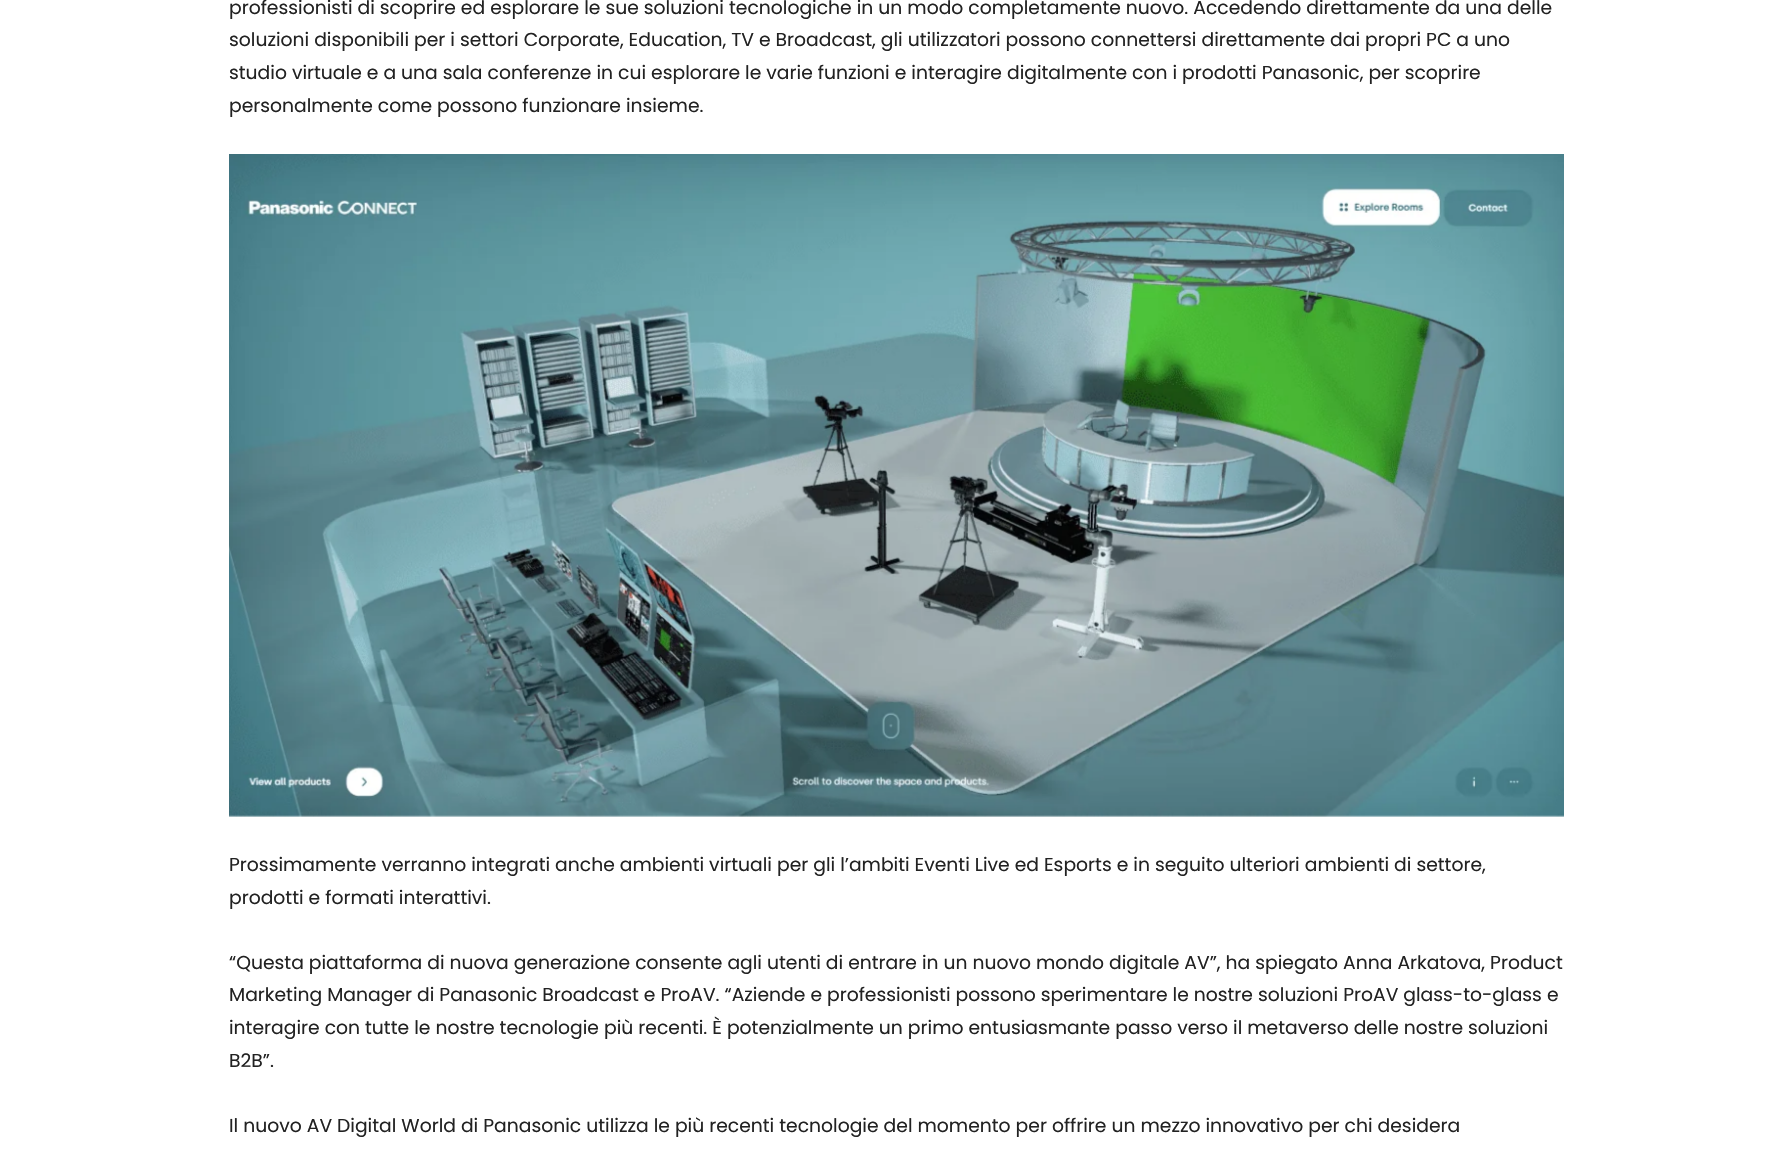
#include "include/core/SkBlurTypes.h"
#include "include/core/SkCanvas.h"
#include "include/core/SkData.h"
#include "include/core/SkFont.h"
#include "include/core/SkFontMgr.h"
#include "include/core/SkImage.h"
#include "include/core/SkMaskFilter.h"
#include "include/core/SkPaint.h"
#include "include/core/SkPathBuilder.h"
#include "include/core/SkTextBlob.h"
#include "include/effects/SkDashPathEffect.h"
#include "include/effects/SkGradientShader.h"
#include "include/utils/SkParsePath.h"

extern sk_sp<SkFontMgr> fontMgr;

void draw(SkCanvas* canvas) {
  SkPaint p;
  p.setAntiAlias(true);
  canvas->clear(SK_ColorWHITE);
  canvas->drawImageRect(SkImages::DeferredFromEncodedData(SkData::MakeFromFileName("images/1.png")), SkRect::MakeLTRB(229, 154, 1564, 817), SkSamplingOptions());
  SkFont font1(fontMgr->matchFamilyStyle("Poppins", SkFontStyle::Normal()), 18.75f);
  font1.setSubpixel(true);
  p.setColor(SkColorSetRGB(34, 34, 34));
  canvas->drawString("professionisti di scoprire ed esplorare le sue soluzioni tecnologiche in un modo completamente nuovo. Accedendo direttamente da una delle", 229, 14, font1, p);
  canvas->drawString("soluzioni disponibili per i settori Corporate, Education, TV e Broadcast, gli utilizzatori possono connettersi direttamente dai propri PC a uno", 229, 46, font1, p);
  canvas->drawString("studio virtuale e a una sala conferenze in cui esplorare le varie funzioni e interagire digitalmente con i prodotti Panasonic, per scoprire", 229, 79, font1, p);
  canvas->drawString("personalmente come possono funzionare insieme.", 229, 112, font1, p);
  canvas->drawString("Prossimamente verranno integrati anche ambienti virtuali per gli l’ambiti Eventi Live ed Esports e in seguito ulteriori ambienti di settore,", 229, 871, font1, p);
  canvas->drawString("prodotti e formati interattivi.", 229, 904, font1, p);
  canvas->drawString("“Questa piattaforma di nuova generazione consente agli utenti di entrare in un nuovo mondo digitale AV”, ha spiegato Anna Arkatova, Product", 229, 969, font1, p);
  canvas->drawString("Marketing Manager di Panasonic Broadcast e ProAV. “Aziende e professionisti possono sperimentare le nostre soluzioni ProAV glass-to-glass e", 229, 1001, font1, p);
  canvas->drawString("interagire con tutte le nostre tecnologie più recenti. È potenzialmente un primo entusiasmante passo verso il metaverso delle nostre soluzioni", 229, 1034, font1, p);
  canvas->drawString("B2B”.", 229, 1067, font1, p);
  canvas->drawString("Il nuovo AV Digital World di Panasonic utilizza le più recenti tecnologie del momento per offrire un mezzo innovativo per chi desidera", 229, 1132, font1, p);
}
